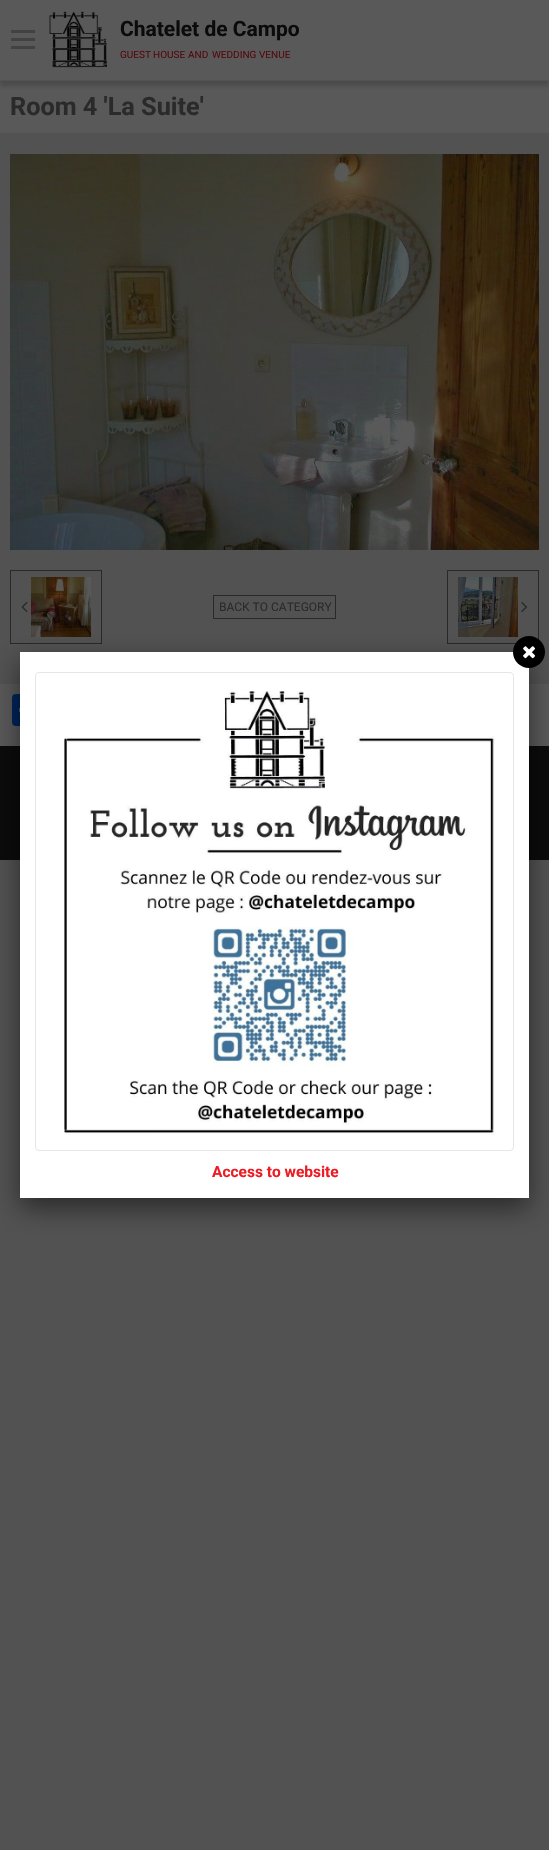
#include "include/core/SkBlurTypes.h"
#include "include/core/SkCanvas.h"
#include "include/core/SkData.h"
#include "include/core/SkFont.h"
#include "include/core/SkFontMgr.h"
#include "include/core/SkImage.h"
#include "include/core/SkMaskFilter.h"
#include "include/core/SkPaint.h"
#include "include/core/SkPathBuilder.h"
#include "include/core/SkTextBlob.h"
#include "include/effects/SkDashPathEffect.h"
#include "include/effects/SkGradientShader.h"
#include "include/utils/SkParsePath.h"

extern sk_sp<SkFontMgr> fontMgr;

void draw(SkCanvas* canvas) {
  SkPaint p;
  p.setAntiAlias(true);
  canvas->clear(SkColorSetRGB(82, 82, 82));
  p.setColor(SkColorSetRGB(89, 89, 89));
  canvas->drawRect(SkRect::MakeLTRB(0, 81, 549, 133), p);
  p.setColor(SkColorSetRGB(73, 73, 73));
  p.setMaskFilter(SkMaskFilter::MakeBlur(kNormal_SkBlurStyle, 2.5f));
  canvas->drawRect(SkRect::MakeLTRB(0, 5, 549, 86), p);
  p.setMaskFilter(nullptr);
  p.setColor(SkColorSetRGB(89, 89, 89));
  canvas->drawRect(SkRect::MakeLTRB(0, 0, 549, 80), p);
  p.setColor(SkColorSetRGB(82, 82, 82));
  canvas->drawRect(SkRect::MakeLTRB(0, 80, 549, 81), p);
  p.setColor(SkColorSetRGB(66, 66, 66));
  canvas->drawRect(SkRect::MakeLTRB(11, 38, 35, 41), p);
  canvas->drawRect(SkRect::MakeLTRB(11, 30, 35, 33), p);
  canvas->drawRect(SkRect::MakeLTRB(11, 46, 35, 49), p);
  canvas->drawImageRect(SkImages::DeferredFromEncodedData(SkData::MakeFromFileName("images/1.png")), SkRect::MakeLTRB(49, 11, 107, 68), SkSamplingOptions());
  canvas->drawImageRect(SkImages::DeferredFromEncodedData(SkData::MakeFromFileName("images/2.png")), SkRect::MakeLTRB(10, 154, 539, 550), SkSamplingOptions());
  p.setStyle(SkPaint::kStroke_Style);
  p.setStrokeWidth(1);
  p.setColor(SkColorSetRGB(41, 41, 41));
  canvas->drawRect(SkRect::MakeLTRB(10.5f, 570.5f, 101.5f, 643.5f), p);
  canvas->drawImageRect(SkImages::DeferredFromEncodedData(SkData::MakeFromFileName("images/3.png")), SkRect::MakeLTRB(21, 601, 28, 613), SkSamplingOptions());
  canvas->drawImageRect(SkImages::DeferredFromEncodedData(SkData::MakeFromFileName("images/4.png")), SkRect::MakeLTRB(31, 577, 91, 637), SkSamplingOptions());
  canvas->drawRect(SkRect::MakeLTRB(213.5f, 595.5f, 335.5f, 618.5f), p);
  canvas->drawRect(SkRect::MakeLTRB(447.5f, 570.5f, 538.5f, 643.5f), p);
  canvas->drawImageRect(SkImages::DeferredFromEncodedData(SkData::MakeFromFileName("images/5.png")), SkRect::MakeLTRB(458, 577, 518, 637), SkSamplingOptions());
  canvas->drawImageRect(SkImages::DeferredFromEncodedData(SkData::MakeFromFileName("images/6.png")), SkRect::MakeLTRB(521, 601, 528, 613), SkSamplingOptions());
  p.setStyle(SkPaint::kFill_Style);
  p.setColor(SkColorSetRGB(89, 89, 89));
  canvas->drawRect(SkRect::MakeLTRB(0, 684, 549, 746), p);
  p.setColor(SkColorSetRGB(0, 36, 89));
  canvas->drawRoundRect(SkRect::MakeLTRB(12, 694, 44, 726), 4, 4, p);
  p.setColor(SkColorSetRGB(89, 89, 89));
  canvas->drawRect(SkRect::MakeLTRB(19, 708, 20, 712), p);
  p.setColor(SkColorSetRGB(11, 11, 11));
  canvas->drawRect(SkRect::MakeLTRB(0, 746, 549, 860), p);
  p.setColor(SkColorSetARGB(128, 0, 0, 0));
  p.setMaskFilter(SkMaskFilter::MakeBlur(kNormal_SkBlurStyle, 12.5f));
  canvas->drawRect(SkRect::MakeLTRB(20, 662, 529, 1208), p);
  p.setMaskFilter(nullptr);
  p.setColor(SK_ColorWHITE);
  canvas->drawRect(SkRect::MakeLTRB(20, 652, 529, 1198), p);
  p.setColor(SK_ColorBLACK);
  canvas->drawCircle(529, 652, 16, p);
  canvas->drawImageRect(SkImages::DeferredFromEncodedData(SkData::MakeFromFileName("images/7.png")), SkRect::MakeLTRB(523, 646, 535, 659), SkSamplingOptions());
  p.setStyle(SkPaint::kStroke_Style);
  p.setColor(SkColorSetRGB(230, 230, 230));
  canvas->drawRoundRect(SkRect::MakeLTRB(35.5f, 672.5f, 513.5f, 1150.5f), 3.5f, 3.5f, p);
  canvas->drawImageRect(SkImages::DeferredFromEncodedData(SkData::MakeFromFileName("images/8.png")), SkRect::MakeLTRB(64, 691, 495, 1135), SkSamplingOptions());
  SkFont font1(fontMgr->matchFamilyStyle("Roboto", SkFontStyle::Bold()), 21);
  font1.setSubpixel(true);
  p.setStyle(SkPaint::kFill_Style);
  p.setColor(SkColorSetRGB(11, 11, 11));
  canvas->drawString("Chatelet de Campo", 120, 36, font1, p);
  SkFont font2(fontMgr->matchFamilyStyle("Roboto", SkFontStyle::Normal()), 10);
  font2.setSubpixel(true);
  p.setColor(SkColorSetRGB(83, 10, 13));
  canvas->drawString("GUEST", 120, 58, font2, p);
  canvas->drawString("HOUSE", 153, 58, font2, p);
  canvas->drawString("AND", 188, 58, font2, p);
  canvas->drawString("WEDDING", 212, 58, font2, p);
  canvas->drawString("VENUE", 259, 58, font2, p);
  SkFont font3(fontMgr->matchFamilyStyle("Roboto", SkFontStyle::Bold()), 25.25f);
  font3.setSubpixel(true);
  p.setColor(SkColorSetRGB(42, 42, 42));
  canvas->drawString("Room 4 'La Suite'", 10, 115, font3, p);
  SkFont font4(fontMgr->matchFamilyStyle("Roboto", SkFontStyle::Normal()), 12);
  font4.setSubpixel(true);
  canvas->drawString("BACK TO CATEGORY", 219, 611, font4, p);
  SkFont font5(fontMgr->matchFamilyStyle("Roboto", SkFontStyle::Bold()), 15.5f);
  font5.setSubpixel(true);
  p.setColor(SkColorSetRGB(237, 28, 36));
  canvas->drawString("Access to website", 212, 1177, font5, p);
}
